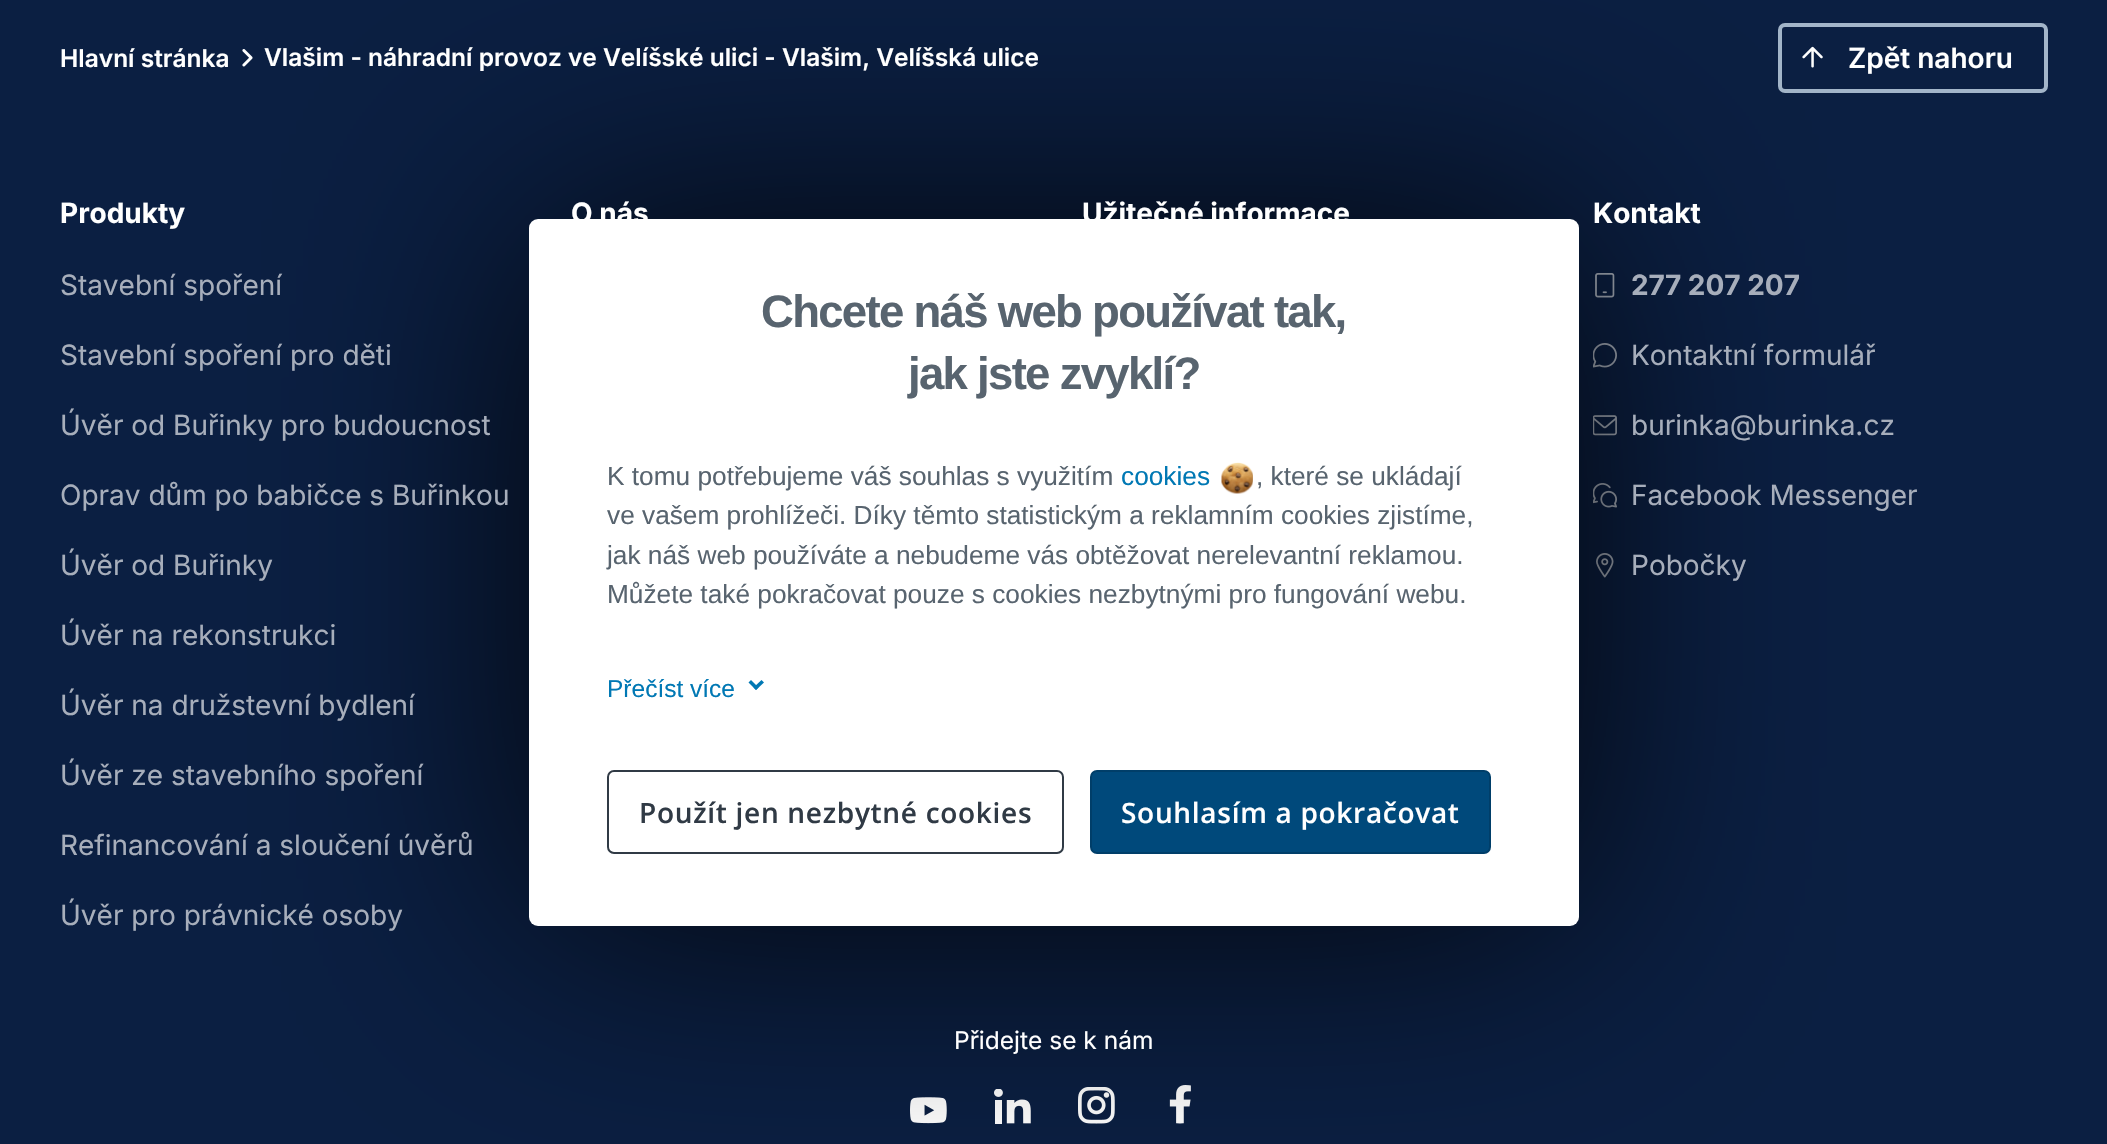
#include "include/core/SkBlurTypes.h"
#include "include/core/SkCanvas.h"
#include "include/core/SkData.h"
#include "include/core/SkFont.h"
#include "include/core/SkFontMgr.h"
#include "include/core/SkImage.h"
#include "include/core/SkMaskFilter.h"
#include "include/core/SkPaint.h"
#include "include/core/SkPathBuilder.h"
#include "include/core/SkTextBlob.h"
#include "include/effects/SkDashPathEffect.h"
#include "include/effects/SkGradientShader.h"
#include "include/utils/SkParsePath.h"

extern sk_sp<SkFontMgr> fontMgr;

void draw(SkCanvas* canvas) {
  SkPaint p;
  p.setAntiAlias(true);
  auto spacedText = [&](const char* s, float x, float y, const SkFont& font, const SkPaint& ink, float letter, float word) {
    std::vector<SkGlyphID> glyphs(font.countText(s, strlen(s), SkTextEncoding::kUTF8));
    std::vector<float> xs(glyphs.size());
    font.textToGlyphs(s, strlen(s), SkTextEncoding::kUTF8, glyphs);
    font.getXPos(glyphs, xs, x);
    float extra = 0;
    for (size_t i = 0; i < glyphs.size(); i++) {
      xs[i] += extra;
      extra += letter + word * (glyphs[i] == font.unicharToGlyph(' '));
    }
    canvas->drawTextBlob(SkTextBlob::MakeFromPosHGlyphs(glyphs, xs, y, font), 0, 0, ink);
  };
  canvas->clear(SkColorSetRGB(11, 31, 66));
  canvas->drawImageRect(SkImages::DeferredFromEncodedData(SkData::MakeFromFileName("images/1.png")), SkRect::MakeLTRB(242, 49, 253, 67), SkSamplingOptions());
  p.setStyle(SkPaint::kStroke_Style);
  p.setStrokeWidth(4);
  p.setColor(SkColorSetRGB(163, 181, 201));
  canvas->drawRoundRect(SkRect::MakeLTRB(1780, 25, 2046, 91), 5, 5, p);
  canvas->drawImageRect(SkImages::DeferredFromEncodedData(SkData::MakeFromFileName("images/2.png")), SkRect::MakeLTRB(1802, 46, 1823, 68), SkSamplingOptions());
  canvas->drawImageRect(SkImages::DeferredFromEncodedData(SkData::MakeFromFileName("images/3.png")), SkRect::MakeLTRB(1595, 273, 1615, 298), SkSamplingOptions());
  canvas->drawImageRect(SkImages::DeferredFromEncodedData(SkData::MakeFromFileName("images/4.png")), SkRect::MakeLTRB(1593, 343, 1617, 368), SkSamplingOptions());
  canvas->drawImageRect(SkImages::DeferredFromEncodedData(SkData::MakeFromFileName("images/5.png")), SkRect::MakeLTRB(1593, 415, 1617, 436), SkSamplingOptions());
  canvas->drawImageRect(SkImages::DeferredFromEncodedData(SkData::MakeFromFileName("images/6.png")), SkRect::MakeLTRB(1593, 483, 1617, 508), SkSamplingOptions());
  canvas->drawImageRect(SkImages::DeferredFromEncodedData(SkData::MakeFromFileName("images/7.png")), SkRect::MakeLTRB(1596, 553, 1614, 578), SkSamplingOptions());
  canvas->drawImageRect(SkImages::DeferredFromEncodedData(SkData::MakeFromFileName("images/8.png")), SkRect::MakeLTRB(910, 1097, 947, 1124), SkSamplingOptions());
  canvas->drawImageRect(SkImages::DeferredFromEncodedData(SkData::MakeFromFileName("images/9.png")), SkRect::MakeLTRB(994, 1089, 1031, 1124), SkSamplingOptions());
  canvas->drawImageRect(SkImages::DeferredFromEncodedData(SkData::MakeFromFileName("images/10.png")), SkRect::MakeLTRB(1078, 1087, 1115, 1124), SkSamplingOptions());
  canvas->drawImageRect(SkImages::DeferredFromEncodedData(SkData::MakeFromFileName("images/11.png")), SkRect::MakeLTRB(1169, 1085, 1191, 1124), SkSamplingOptions());
  p.setStyle(SkPaint::kFill_Style);
  p.setColor(SkColorSetARGB(219, 0, 0, 0));
  p.setMaskFilter(SkMaskFilter::MakeBlur(kNormal_SkBlurStyle, 875));
  canvas->drawRoundRect(SkRect::MakeLTRB(529, 219, 1579, 926), 9, 9, p);
  p.setMaskFilter(nullptr);
  p.setColor(SK_ColorWHITE);
  canvas->drawRoundRect(SkRect::MakeLTRB(529, 219, 1579, 926), 9, 9, p);
  canvas->drawImageRect(SkImages::DeferredFromEncodedData(SkData::MakeFromFileName("images/12.png")), SkRect::MakeLTRB(1221, 462, 1253, 494), SkSamplingOptions());
  p.setColor(SkColorSetRGB(0, 120, 180));
  canvas->drawPath(SkPathBuilder().moveTo(764, 682.5f).lineTo(756, 690).lineTo(753.5f, 687.5f).lineTo(761.5f, 680).close().detach(), p);
  canvas->drawPath(SkPathBuilder().moveTo(758.5f, 687.5f).lineTo(756, 690).lineTo(748.5f, 682.5f).lineTo(751, 680).close().detach(), p);
  p.setStyle(SkPaint::kStroke_Style);
  p.setStrokeWidth(2);
  p.setColor(SkColorSetRGB(48, 58, 69));
  canvas->drawRoundRect(SkRect::MakeLTRB(608, 771, 1063, 853), 6, 6, p);
  p.setStyle(SkPaint::kFill_Style);
  p.setColor(SkColorSetRGB(0, 73, 123));
  canvas->drawRoundRect(SkRect::MakeLTRB(1091, 771, 1490, 853), 6, 6, p);
  p.setStyle(SkPaint::kStroke_Style);
  p.setColor(SkColorSetRGB(0, 62, 105));
  canvas->drawRoundRect(SkRect::MakeLTRB(1091, 771, 1490, 853), 6, 6, p);
  SkFont font1(fontMgr->matchFamilyStyle("Inter", SkFontStyle(600, SkFontStyle::kNormal_Width, SkFontStyle::kUpright_Slant)), 24.5f);
  font1.setSubpixel(true);
  p.setStyle(SkPaint::kFill_Style);
  p.setColor(SK_ColorWHITE);
  canvas->drawString("Hlavní stránka", 60, 67, font1, p);
  canvas->drawString("Vlašim - náhradní provoz ve Velíšské ulici - Vlašim, Velíšská ulice", 264, 66, font1, p);
  SkFont font2(fontMgr->matchFamilyStyle("Inter", SkFontStyle(600, SkFontStyle::kNormal_Width, SkFontStyle::kUpright_Slant)), 28);
  font2.setSubpixel(true);
  canvas->drawString("Zpět nahoru", 1848, 68, font2, p);
  SkFont font3(fontMgr->matchFamilyStyle("Inter", SkFontStyle::Bold()), 28);
  font3.setSubpixel(true);
  canvas->drawString("Produkty", 60, 223, font3, p);
  SkFont font4(fontMgr->matchFamilyStyle("Inter", SkFontStyle::Normal()), 28);
  font4.setSubpixel(true);
  p.setColor(SkColorSetRGB(167, 174, 187));
  canvas->drawString("Stavební spoření", 60, 295, font4, p);
  canvas->drawString("Stavební spoření pro děti", 60, 365, font4, p);
  canvas->drawString("Úvěr od Buřinky pro budoucnost", 60, 435, font4, p);
  canvas->drawString("Oprav dům po babičce s Buřinkou", 60, 505, font4, p);
  canvas->drawString("Úvěr od Buřinky", 60, 575, font4, p);
  canvas->drawString("Úvěr na rekonstrukci", 60, 645, font4, p);
  canvas->drawString("Úvěr na družstevní bydlení", 60, 715, font4, p);
  canvas->drawString("Úvěr ze stavebního spoření", 60, 785, font4, p);
  canvas->drawString("Refinancování a sloučení úvěrů", 60, 855, font4, p);
  canvas->drawString("Úvěr pro právnické osoby", 60, 925, font4, p);
  p.setColor(SK_ColorWHITE);
  canvas->drawString("O nás", 571, 223, font3, p);
  canvas->drawString("Užitečné informace", 1082, 223, font3, p);
  canvas->drawString("Kontakt", 1593, 223, font3, p);
  p.setColor(SkColorSetRGB(167, 174, 187));
  canvas->drawString("277 207 207", 1631, 295, font3, p);
  canvas->drawString("Kontaktní formulář", 1631, 365, font4, p);
  canvas->drawString("burinka@burinka.cz", 1631, 435, font4, p);
  canvas->drawString("Facebook Messenger", 1631, 505, font4, p);
  canvas->drawString("Pobočky", 1631, 575, font4, p);
  SkFont font5(fontMgr->matchFamilyStyle("Inter", SkFontStyle::Normal()), 24.5f);
  font5.setSubpixel(true);
  p.setColor(SK_ColorWHITE);
  canvas->drawString("Přidejte se k nám", 954, 1049, font5, p);
  SkFont font6(fontMgr->matchFamilyStyle("Liberation Sans", SkFontStyle::Bold()), 45.5f);
  font6.setSubpixel(true);
  p.setColor(SkColorSetRGB(88, 100, 111));
  spacedText("Chcete náš web používat tak,", 761, 327, font6, p, -1.7f, 0);
  spacedText("jak jste zvyklí?", 908, 389, font6, p, -1.7f, 0);
  SkFont font7(fontMgr->matchFamilyStyle("Liberation Sans", SkFontStyle::Normal()), 26.25f);
  font7.setSubpixel(true);
  canvas->drawString("K tomu potřebujeme váš souhlas s využitím", 607, 485, font7, p);
  p.setColor(SkColorSetRGB(0, 120, 180));
  canvas->drawString("cookies", 1121, 485, font7, p);
  p.setColor(SkColorSetRGB(88, 100, 111));
  canvas->drawString(", které se ukládají", 1256, 485, font7, p);
  canvas->drawString("ve vašem prohlížeči. Díky těmto statistickým a reklamním cookies zjistíme,", 607, 524, font7, p);
  canvas->drawString("jak náš web používáte a nebudeme vás obtěžovat nerelevantní reklamou.", 607, 564, font7, p);
  canvas->drawString("Můžete také pokračovat pouze s cookies nezbytnými pro fungování webu.", 607, 603, font7, p);
  SkFont font8(fontMgr->matchFamilyStyle("Liberation Sans", SkFontStyle::Normal()), 24.5f);
  font8.setSubpixel(true);
  p.setColor(SkColorSetRGB(0, 120, 180));
  canvas->drawString("Přečíst více", 607, 697, font8, p);
  SkFont font9(fontMgr->matchFamilyStyle("Open Sans", SkFontStyle(600, SkFontStyle::kNormal_Width, SkFontStyle::kUpright_Slant)), 28);
  font9.setSubpixel(true);
  p.setColor(SkColorSetRGB(48, 58, 69));
  spacedText("Použít jen nezbytné cookies", 639, 823, font9, p, 0.7f, 0);
  p.setColor(SK_ColorWHITE);
  spacedText("Souhlasím a pokračovat", 1121, 823, font9, p, 0.7f, 0);
}
